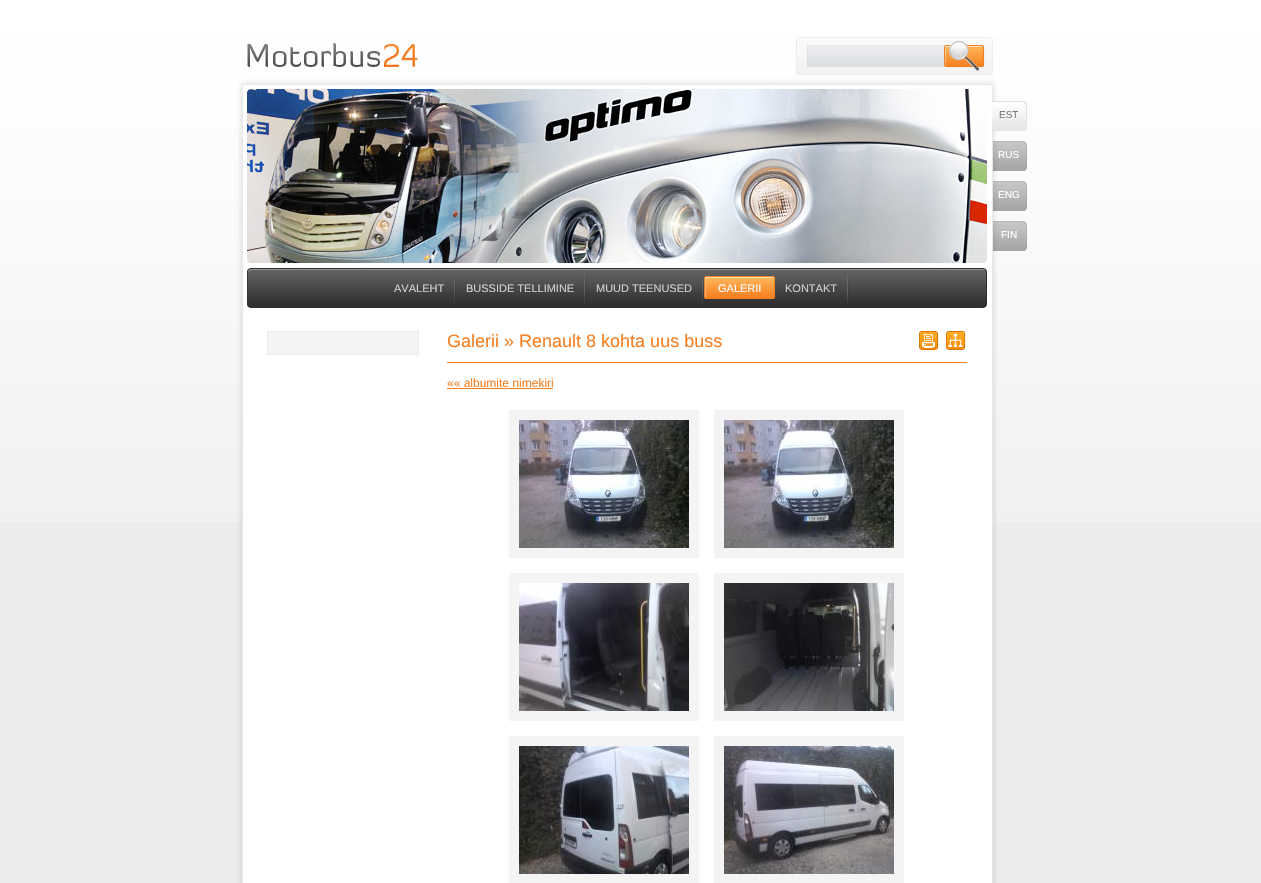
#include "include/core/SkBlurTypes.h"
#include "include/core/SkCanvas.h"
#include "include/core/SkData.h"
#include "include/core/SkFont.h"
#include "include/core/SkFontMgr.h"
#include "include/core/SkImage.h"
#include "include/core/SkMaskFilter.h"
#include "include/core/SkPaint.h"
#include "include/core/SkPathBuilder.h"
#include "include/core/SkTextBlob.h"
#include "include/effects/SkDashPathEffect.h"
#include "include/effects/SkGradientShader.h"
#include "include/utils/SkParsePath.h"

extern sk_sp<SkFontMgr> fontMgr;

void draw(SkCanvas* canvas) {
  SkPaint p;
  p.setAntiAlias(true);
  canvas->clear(SkColorSetRGB(236, 236, 236));
  canvas->drawImageRect(SkImages::DeferredFromEncodedData(SkData::MakeFromFileName("images/1.png")), SkRect::MakeLTRB(0, 0, 1261, 522), SkSamplingOptions());
  canvas->drawImageRect(SkImages::DeferredFromEncodedData(SkData::MakeFromFileName("images/2.png")), SkRect::MakeLTRB(247, 40, 419, 72), SkSamplingOptions());
  canvas->drawImageRect(SkImages::DeferredFromEncodedData(SkData::MakeFromFileName("images/3.png")), SkRect::MakeLTRB(796, 37, 993, 75), SkSamplingOptions());
  canvas->drawImageRect(SkImages::DeferredFromEncodedData(SkData::MakeFromFileName("images/7.png")), SkRect::MakeLTRB(238, 76, 997, 268), SkSamplingOptions());
  canvas->drawImageRect(SkImages::DeferredFromEncodedData(SkData::MakeFromFileName("images/4.png")), SkRect::MakeLTRB(992, 101, 1027, 131), SkSamplingOptions());
  canvas->drawImageRect(SkImages::DeferredFromEncodedData(SkData::MakeFromFileName("images/5.png")), SkRect::MakeLTRB(993, 141, 1027, 171), SkSamplingOptions());
  canvas->drawImageRect(SkImages::DeferredFromEncodedData(SkData::MakeFromFileName("images/5.png")), SkRect::MakeLTRB(993, 181, 1027, 211), SkSamplingOptions());
  canvas->drawImageRect(SkImages::DeferredFromEncodedData(SkData::MakeFromFileName("images/5.png")), SkRect::MakeLTRB(993, 221, 1027, 251), SkSamplingOptions());
  canvas->drawImageRect(SkImages::DeferredFromEncodedData(SkData::MakeFromFileName("images/6.png")), SkRect::MakeLTRB(238, 268, 997, 883), SkSamplingOptions());
  canvas->drawImageRect(SkImages::DeferredFromEncodedData(SkData::MakeFromFileName("images/8.png")), SkRect::MakeLTRB(247, 268, 987, 308), SkSamplingOptions());
  canvas->drawImageRect(SkImages::DeferredFromEncodedData(SkData::MakeFromFileName("images/9.png")), SkRect::MakeLTRB(982, 268, 987, 274), SkSamplingOptions());
  canvas->drawImageRect(SkImages::DeferredFromEncodedData(SkData::MakeFromFileName("images/10.png")), SkRect::MakeLTRB(454, 274, 456, 304), SkSamplingOptions());
  canvas->drawImageRect(SkImages::DeferredFromEncodedData(SkData::MakeFromFileName("images/10.png")), SkRect::MakeLTRB(584, 274, 586, 304), SkSamplingOptions());
  canvas->drawImageRect(SkImages::DeferredFromEncodedData(SkData::MakeFromFileName("images/10.png")), SkRect::MakeLTRB(702, 274, 704, 304), SkSamplingOptions());
  canvas->drawImageRect(SkImages::DeferredFromEncodedData(SkData::MakeFromFileName("images/11.png")), SkRect::MakeLTRB(704, 276, 708, 300), SkSamplingOptions());
  canvas->drawImageRect(SkImages::DeferredFromEncodedData(SkData::MakeFromFileName("images/12.png")), SkRect::MakeLTRB(708, 276, 771, 299), SkSamplingOptions());
  canvas->drawImageRect(SkImages::DeferredFromEncodedData(SkData::MakeFromFileName("images/13.png")), SkRect::MakeLTRB(771, 276, 775, 300), SkSamplingOptions());
  canvas->drawImageRect(SkImages::DeferredFromEncodedData(SkData::MakeFromFileName("images/10.png")), SkRect::MakeLTRB(847, 274, 849, 304), SkSamplingOptions());
  p.setColor(SkColorSetRGB(244, 244, 244));
  canvas->drawRect(SkRect::MakeLTRB(267.5f, 331.5f, 418.5f, 354.5f), p);
  p.setStyle(SkPaint::kStroke_Style);
  p.setStrokeWidth(1);
  p.setColor(SkColorSetRGB(235, 235, 235));
  canvas->drawRect(SkRect::MakeLTRB(267.5f, 331.5f, 418.5f, 354.5f), p);
  canvas->drawImageRect(SkImages::DeferredFromEncodedData(SkData::MakeFromFileName("images/14.png")), SkRect::MakeLTRB(917, 331, 940, 350), SkSamplingOptions());
  canvas->drawImageRect(SkImages::DeferredFromEncodedData(SkData::MakeFromFileName("images/15.png")), SkRect::MakeLTRB(944, 331, 967, 350), SkSamplingOptions());
  p.setStyle(SkPaint::kFill_Style);
  p.setColor(SkColorSetRGB(245, 126, 32));
  canvas->drawRect(SkRect::MakeLTRB(447, 362, 967, 363), p);
  canvas->drawRect(SkRect::MakeLTRB(447, 388, 553, 389), p);
  p.setColor(SkColorSetRGB(244, 244, 244));
  canvas->drawRect(SkRect::MakeLTRB(509, 410, 699, 558), p);
  canvas->drawImageRect(SkImages::DeferredFromEncodedData(SkData::MakeFromFileName("images/16.png")), SkRect::MakeLTRB(519, 420, 689, 548), SkSamplingOptions());
  canvas->drawRect(SkRect::MakeLTRB(714, 410, 904, 558), p);
  canvas->drawImageRect(SkImages::DeferredFromEncodedData(SkData::MakeFromFileName("images/17.png")), SkRect::MakeLTRB(724, 420, 894, 548), SkSamplingOptions());
  canvas->drawRect(SkRect::MakeLTRB(509, 573, 699, 721), p);
  canvas->drawImageRect(SkImages::DeferredFromEncodedData(SkData::MakeFromFileName("images/18.png")), SkRect::MakeLTRB(519, 583, 689, 711), SkSamplingOptions());
  canvas->drawRect(SkRect::MakeLTRB(714, 573, 904, 721), p);
  canvas->drawImageRect(SkImages::DeferredFromEncodedData(SkData::MakeFromFileName("images/19.png")), SkRect::MakeLTRB(724, 583, 894, 711), SkSamplingOptions());
  canvas->drawRect(SkRect::MakeLTRB(509, 736, 699, 883), p);
  canvas->drawImageRect(SkImages::DeferredFromEncodedData(SkData::MakeFromFileName("images/20.png")), SkRect::MakeLTRB(519, 746, 689, 874), SkSamplingOptions());
  canvas->drawRect(SkRect::MakeLTRB(714, 736, 904, 883), p);
  canvas->drawImageRect(SkImages::DeferredFromEncodedData(SkData::MakeFromFileName("images/21.png")), SkRect::MakeLTRB(724, 746, 894, 874), SkSamplingOptions());
  SkFont font1(fontMgr->matchFamilyStyle("Liberation Sans", SkFontStyle::Normal()), 10);
  font1.setSubpixel(true);
  p.setColor(SkColorSetRGB(124, 124, 124));
  canvas->drawString("EST", 999, 118, font1, p);
  p.setColor(SkColorSetRGB(254, 254, 254));
  canvas->drawString("RUS", 998, 158, font1, p);
  canvas->drawString("ENG", 998, 198, font1, p);
  canvas->drawString("FIN", 1001, 238, font1, p);
  SkFont font2(fontMgr->matchFamilyStyle("Liberation Sans", SkFontStyle::Normal()), 11);
  font2.setSubpixel(true);
  p.setColor(SkColorSetRGB(209, 209, 209));
  canvas->drawString("AVALEHT", 394, 292, font2, p);
  canvas->drawString("BUSSIDE TELLIMINE", 466, 292, font2, p);
  canvas->drawString("MUUD TEENUSED", 596, 292, font2, p);
  p.setColor(SkColorSetRGB(248, 248, 248));
  canvas->drawString("GALERII", 718, 292, font2, p);
  p.setColor(SkColorSetRGB(209, 209, 209));
  canvas->drawString("KONTAKT", 785, 292, font2, p);
  SkFont font3(fontMgr->matchFamilyStyle("Liberation Sans", SkFontStyle::Normal()), 18);
  font3.setSubpixel(true);
  p.setColor(SkColorSetRGB(245, 126, 32));
  canvas->drawString("Galerii » Renault 8 kohta uus buss", 447, 347, font3, p);
  SkFont font4(fontMgr->matchFamilyStyle("Liberation Sans", SkFontStyle::Normal()), 12);
  font4.setSubpixel(true);
  canvas->drawString("«« albumite nimekiri", 447, 387, font4, p);
}
